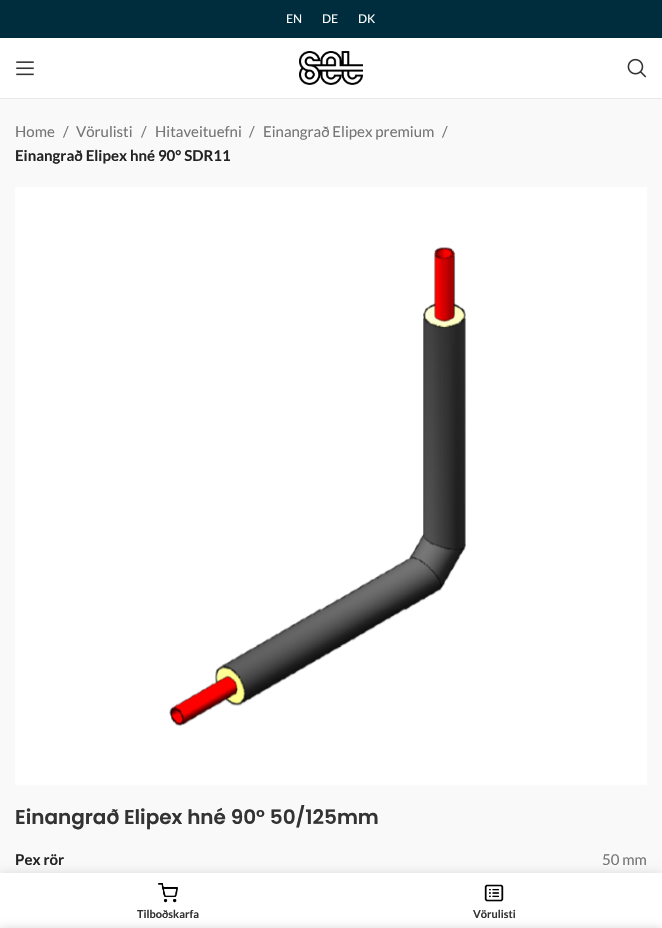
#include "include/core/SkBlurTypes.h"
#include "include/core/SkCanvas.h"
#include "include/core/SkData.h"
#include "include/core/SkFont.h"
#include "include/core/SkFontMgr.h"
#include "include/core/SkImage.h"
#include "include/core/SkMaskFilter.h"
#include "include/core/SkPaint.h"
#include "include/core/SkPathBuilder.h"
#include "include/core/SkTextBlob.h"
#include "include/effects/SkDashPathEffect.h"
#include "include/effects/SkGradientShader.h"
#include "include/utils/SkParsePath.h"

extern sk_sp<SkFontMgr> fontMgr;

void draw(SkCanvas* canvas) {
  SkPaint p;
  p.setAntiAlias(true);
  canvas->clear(SK_ColorWHITE);
  p.setColor(SkColorSetRGB(0, 45, 61));
  canvas->drawRect(SkRect::MakeLTRB(0, 0, 662, 38), p);
  p.setColor(SkColorSetRGB(232, 232, 232));
  canvas->drawRect(SkRect::MakeLTRB(0, 98, 662, 99), p);
  canvas->drawImageRect(SkImages::DeferredFromEncodedData(SkData::MakeFromFileName("images/1.png")), SkRect::MakeLTRB(16, 61, 34, 76), SkSamplingOptions());
  canvas->drawImageRect(SkImages::DeferredFromEncodedData(SkData::MakeFromFileName("images/2.png")), SkRect::MakeLTRB(299, 51, 363, 85), SkSamplingOptions());
  canvas->drawImageRect(SkImages::DeferredFromEncodedData(SkData::MakeFromFileName("images/3.png")), SkRect::MakeLTRB(627, 58, 647, 78), SkSamplingOptions());
  p.setColor(SkColorSetRGB(249, 249, 249));
  canvas->drawRect(SkRect::MakeLTRB(0, 99, 662, 873), p);
  canvas->drawImageRect(SkImages::DeferredFromEncodedData(SkData::MakeFromFileName("images/4.png")), SkRect::MakeLTRB(15, 187, 647, 785), SkSamplingOptions());
  p.setColor(SkColorSetARGB(31, 0, 0, 0));
  p.setMaskFilter(SkMaskFilter::MakeBlur(kNormal_SkBlurStyle, 4.5f));
  canvas->drawRect(SkRect::MakeLTRB(0, 873, 662, 928), p);
  p.setMaskFilter(nullptr);
  p.setColor(SK_ColorWHITE);
  canvas->drawRect(SkRect::MakeLTRB(0, 873, 662, 928), p);
  canvas->drawImageRect(SkImages::DeferredFromEncodedData(SkData::MakeFromFileName("images/5.png")), SkRect::MakeLTRB(158, 883, 178, 903), SkSamplingOptions());
  canvas->drawImageRect(SkImages::DeferredFromEncodedData(SkData::MakeFromFileName("images/6.png")), SkRect::MakeLTRB(484, 884, 504, 902), SkSamplingOptions());
  p.setColor(SkColorSetARGB(36, 0, 0, 0));
  p.setMaskFilter(SkMaskFilter::MakeBlur(kNormal_SkBlurStyle, 4.5f));
  canvas->drawRect(SkRect::MakeLTRB(0, 928, 662, 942), p);
  p.setMaskFilter(nullptr);
  SkFont font1(fontMgr->matchFamilyStyle("Lato", SkFontStyle::Normal()), 12);
  font1.setSubpixel(true);
  p.setColor(SK_ColorWHITE);
  canvas->drawString("EN", 286, 23, font1, p);
  canvas->drawString("DE", 322, 23, font1, p);
  canvas->drawString("DK", 358, 23, font1, p);
  SkFont font2(fontMgr->matchFamilyStyle("Lato", SkFontStyle::Normal()), 15);
  font2.setSubpixel(true);
  p.setColor(SkColorSetRGB(118, 118, 118));
  canvas->drawString("Home", 15, 137, font2, p);
  canvas->drawString("/", 63, 137, font2, p);
  canvas->drawString("Vörulisti", 76, 137, font2, p);
  canvas->drawString("/", 141, 137, font2, p);
  canvas->drawString("Hitaveituefni", 155, 137, font2, p);
  canvas->drawString("/", 249, 137, font2, p);
  canvas->drawString("Einangrað Elipex premium", 263, 137, font2, p);
  canvas->drawString("/", 442, 137, font2, p);
  SkFont font3(fontMgr->matchFamilyStyle("Lato", SkFontStyle::Bold()), 15);
  font3.setSubpixel(true);
  p.setColor(SkColorSetRGB(36, 36, 36));
  canvas->drawString("Einangrað Elipex hné 90° SDR11", 15, 161, font3, p);
  SkFont font4(fontMgr->matchFamilyStyle("Poppins", SkFontStyle(600, SkFontStyle::kNormal_Width, SkFontStyle::kUpright_Slant)), 20);
  font4.setSubpixel(true);
  p.setColor(SkColorSetRGB(51, 51, 51));
  canvas->drawString("Einangrað Elipex hné 90° 50/125mm", 15, 824, font4, p);
  p.setColor(SkColorSetRGB(36, 36, 36));
  canvas->drawString("Pex rör", 15, 865, font3, p);
  p.setColor(SkColorSetRGB(118, 118, 118));
  canvas->drawString("50 mm", 602, 865, font2, p);
  SkFont font5(fontMgr->matchFamilyStyle("Lato", SkFontStyle::Bold()), 11);
  font5.setSubpixel(true);
  p.setColor(SkColorSetRGB(51, 51, 51));
  canvas->drawString("Tilboðskarfa", 137, 918, font5, p);
  canvas->drawString("Vörulisti", 473, 918, font5, p);
}
